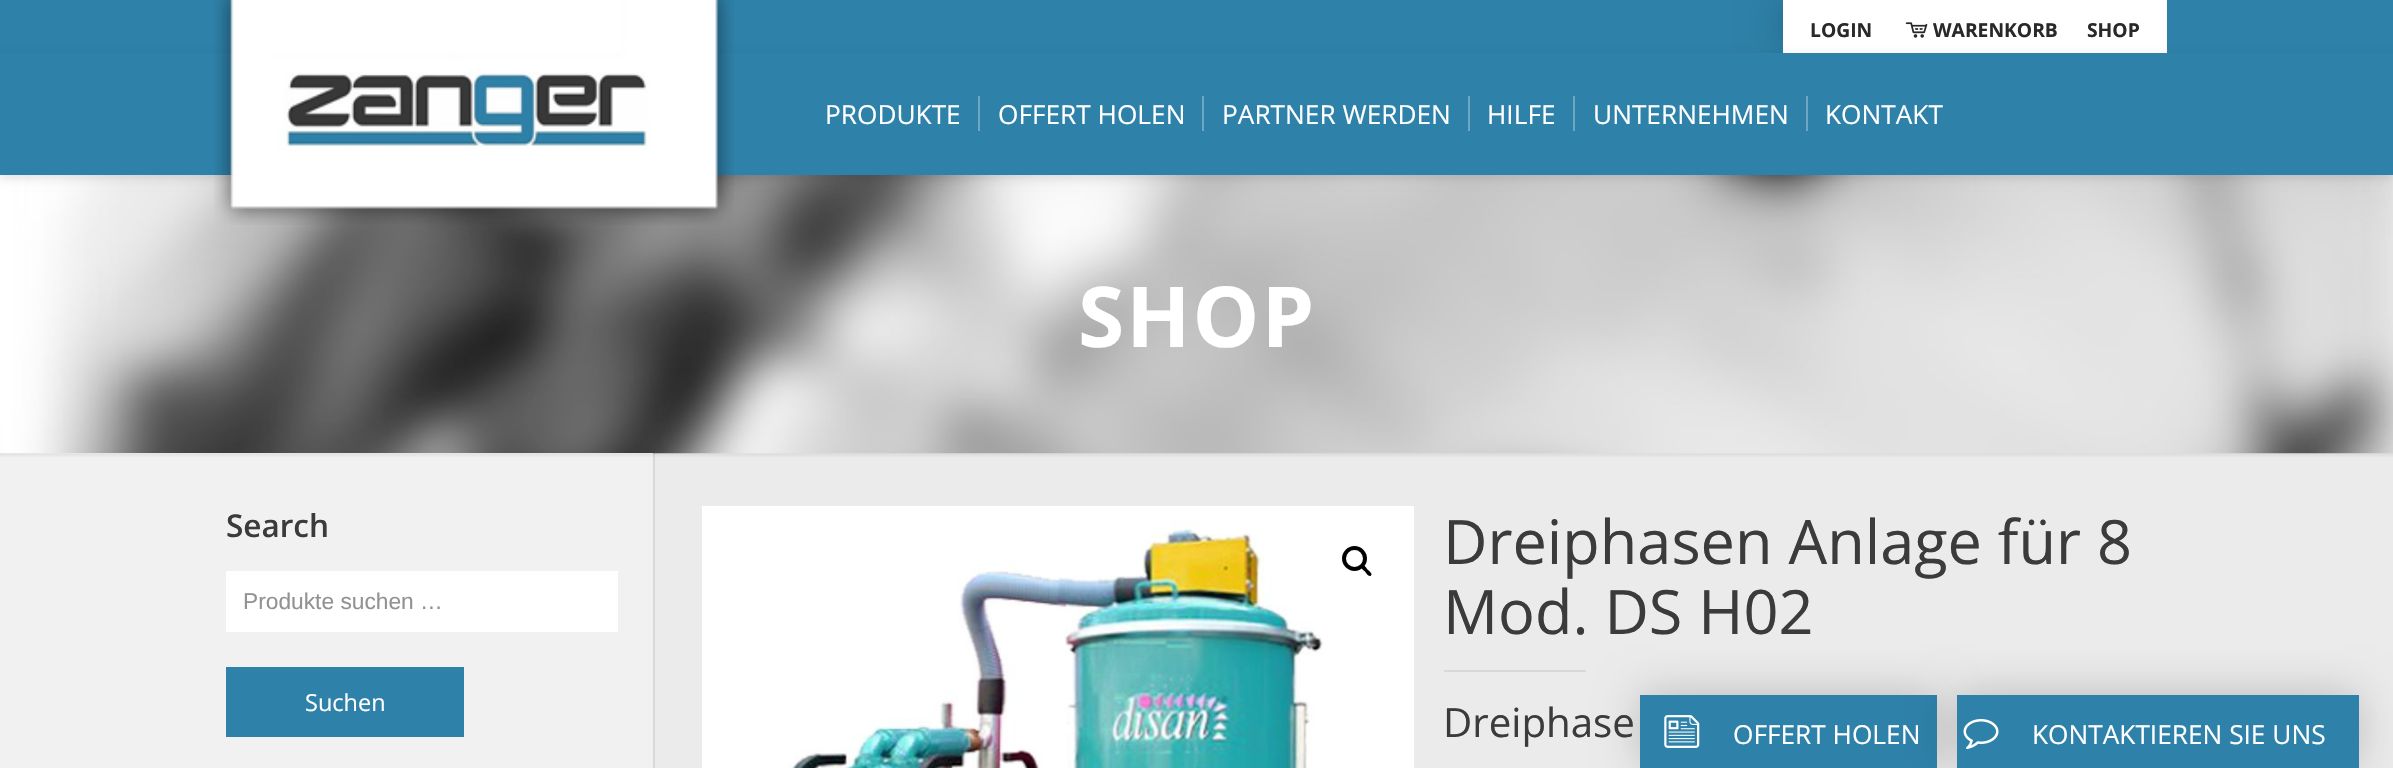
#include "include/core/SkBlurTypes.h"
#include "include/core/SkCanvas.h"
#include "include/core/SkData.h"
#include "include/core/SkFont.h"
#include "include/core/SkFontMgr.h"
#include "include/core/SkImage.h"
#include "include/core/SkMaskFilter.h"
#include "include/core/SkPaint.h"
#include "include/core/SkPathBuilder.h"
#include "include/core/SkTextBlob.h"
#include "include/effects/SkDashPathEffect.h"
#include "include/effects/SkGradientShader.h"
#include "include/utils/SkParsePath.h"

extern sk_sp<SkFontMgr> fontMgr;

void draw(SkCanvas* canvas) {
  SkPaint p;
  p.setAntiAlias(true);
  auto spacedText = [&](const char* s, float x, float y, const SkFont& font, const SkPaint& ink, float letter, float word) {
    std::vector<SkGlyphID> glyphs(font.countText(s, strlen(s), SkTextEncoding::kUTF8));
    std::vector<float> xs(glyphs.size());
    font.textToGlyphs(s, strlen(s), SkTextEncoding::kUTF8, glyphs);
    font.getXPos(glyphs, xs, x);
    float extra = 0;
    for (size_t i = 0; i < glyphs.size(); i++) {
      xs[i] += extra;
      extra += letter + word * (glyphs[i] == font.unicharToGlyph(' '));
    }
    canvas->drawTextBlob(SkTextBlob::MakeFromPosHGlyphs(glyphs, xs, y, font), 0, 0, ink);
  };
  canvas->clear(SkColorSetRGB(235, 235, 235));
  p.setColor(SkColorSetRGB(46, 129, 169));
  canvas->drawRect(SkRect::MakeLTRB(0, 0, 2393, 53), p);
  canvas->save();
  canvas->clipRect(SkRect::MakeLTRB(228, 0, 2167, 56));
  p.setColor(SkColorSetARGB(51, 0, 0, 0));
  p.setMaskFilter(SkMaskFilter::MakeBlur(kNormal_SkBlurStyle, 22));
  canvas->drawRect(SkRect::MakeLTRB(1783, -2, 2167, 54), p);
  p.setMaskFilter(nullptr);
  canvas->restore();
  p.setColor(SK_ColorWHITE);
  canvas->drawRect(SkRect::MakeLTRB(1783, 0, 2167, 53), p);
  canvas->drawImageRect(SkImages::DeferredFromEncodedData(SkData::MakeFromFileName("images/1.png")), SkRect::MakeLTRB(1905, 22, 1928, 38), SkSamplingOptions());
  canvas->drawImageRect(SkImages::DeferredFromEncodedData(SkData::MakeFromFileName("images/3.png")), SkRect::MakeLTRB(0, 175, 2393, 454), SkSamplingOptions());
  p.setColor(SkColorSetARGB(26, 0, 0, 0));
  p.setMaskFilter(SkMaskFilter::MakeBlur(kNormal_SkBlurStyle, 4.5f));
  canvas->drawRect(SkRect::MakeLTRB(0, 56, 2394, 179), p);
  p.setMaskFilter(nullptr);
  p.setColor(SkColorSetRGB(46, 129, 169));
  canvas->drawRect(SkRect::MakeLTRB(0, 53, 2393, 175), p);
  canvas->drawImageRect(SkImages::DeferredFromEncodedData(SkData::MakeFromFileName("images/2.png")), SkRect::MakeLTRB(214, 0, 734, 225), SkSamplingOptions());
  p.setColor(SkColorSetRGB(109, 167, 195));
  canvas->drawRect(SkRect::MakeLTRB(978, 96, 980, 131), p);
  canvas->drawRect(SkRect::MakeLTRB(1202, 96, 1204, 131), p);
  canvas->drawRect(SkRect::MakeLTRB(1468, 96, 1470, 131), p);
  canvas->drawRect(SkRect::MakeLTRB(1573, 96, 1575, 131), p);
  canvas->drawRect(SkRect::MakeLTRB(1806, 96, 1808, 131), p);
  p.setColor(SkColorSetARGB(20, 0, 0, 0));
  canvas->drawRect(SkRect::MakeLTRB(653, 453, 655, 768), p);
  p.setColor(SkColorSetRGB(241, 241, 241));
  canvas->drawRect(SkRect::MakeLTRB(0, 453, 653, 768), p);
  canvas->drawImageRect(SkImages::DeferredFromEncodedData(SkData::MakeFromFileName("images/4.png")), SkRect::MakeLTRB(0, 453, 2393, 457), SkSamplingOptions());
  p.setColor(SK_ColorWHITE);
  canvas->drawRect(SkRect::MakeLTRB(226, 571, 618, 632), p);
  p.setColor(SkColorSetRGB(46, 129, 169));
  canvas->drawRect(SkRect::MakeLTRB(226, 667, 464, 737), p);
  canvas->drawImageRect(SkImages::DeferredFromEncodedData(SkData::MakeFromFileName("images/5.png")), SkRect::MakeLTRB(702, 506, 1414, 768), SkSamplingOptions());
  p.setStyle(SkPaint::kStroke_Style);
  p.setStrokeWidth(4);
  p.setColor(SK_ColorBLACK);
  canvas->drawCircle(1354.5f, 558.5f, 10.5f, p);
  p.setStyle(SkPaint::kFill_Style);
  canvas->drawPath(SkPathBuilder().moveTo(1361.5f, 565.5f).cubicTo(1363.5f, 563.5f, 1366.5f, 568, 1367.5f, 569.5f).cubicTo(1368.5f, 570.5f, 1373, 573.5f, 1371, 575.5f).cubicTo(1369, 577.5f, 1366, 573, 1365, 571.5f).cubicTo(1364, 570.5f, 1359.5f, 567.5f, 1361.5f, 565.5f).close().detach(), p);
  p.setColor(SkColorSetRGB(216, 216, 216));
  canvas->drawRect(SkRect::MakeLTRB(1444, 670, 1586, 672), p);
  p.setColor(SkColorSetARGB(51, 0, 0, 0));
  p.setMaskFilter(SkMaskFilter::MakeBlur(kNormal_SkBlurStyle, 22));
  canvas->drawRect(SkRect::MakeLTRB(1640, 693, 1937, 767), p);
  p.setMaskFilter(nullptr);
  p.setColor(SkColorSetRGB(46, 129, 169));
  canvas->drawRect(SkRect::MakeLTRB(1640, 695, 1937, 768), p);
  canvas->drawImageRect(SkImages::DeferredFromEncodedData(SkData::MakeFromFileName("images/6.png")), SkRect::MakeLTRB(1664, 715, 1700, 748), SkSamplingOptions());
  p.setColor(SkColorSetARGB(51, 0, 0, 0));
  p.setMaskFilter(SkMaskFilter::MakeBlur(kNormal_SkBlurStyle, 22));
  canvas->drawRect(SkRect::MakeLTRB(1957, 693, 2359, 767), p);
  p.setMaskFilter(nullptr);
  p.setColor(SkColorSetRGB(46, 129, 169));
  canvas->drawRect(SkRect::MakeLTRB(1957, 695, 2359, 768), p);
  canvas->drawImageRect(SkImages::DeferredFromEncodedData(SkData::MakeFromFileName("images/7.png")), SkRect::MakeLTRB(1963, 719, 1999, 749), SkSamplingOptions());
  SkFont font1(fontMgr->matchFamilyStyle("Open Sans", SkFontStyle::Bold()), 19.25f);
  font1.setSubpixel(true);
  p.setColor(SkColorSetRGB(41, 41, 41));
  canvas->drawString("LOGIN", 1810, 37, font1, p);
  canvas->drawString("WARENKORB", 1933, 37, font1, p);
  canvas->drawString("SHOP", 2087, 37, font1, p);
  SkFont font2(fontMgr->matchFamilyStyle("Open Sans", SkFontStyle::Normal()), 26.25f);
  font2.setSubpixel(true);
  p.setColor(SK_ColorWHITE);
  canvas->drawString("PRODUKTE", 825, 124, font2, p);
  canvas->drawString("OFFERT HOLEN", 998, 124, font2, p);
  canvas->drawString("PARTNER WERDEN", 1222, 124, font2, p);
  canvas->drawString("HILFE", 1487, 124, font2, p);
  canvas->drawString("UNTERNEHMEN", 1593, 124, font2, p);
  canvas->drawString("KONTAKT", 1825, 124, font2, p);
  SkFont font3(fontMgr->matchFamilyStyle("Open Sans", SkFontStyle::Bold()), 84);
  font3.setSubpixel(true);
  spacedText("SHOP", 1078, 347, font3, p, 2, 0);
  SkFont font4(fontMgr->matchFamilyStyle("Open Sans", SkFontStyle(600, SkFontStyle::kNormal_Width, SkFontStyle::kUpright_Slant)), 31.5f);
  font4.setSubpixel(true);
  p.setColor(SkColorSetRGB(59, 59, 59));
  canvas->drawString("Search", 226, 537, font4, p);
  SkFont font5(fontMgr->matchFamilyStyle("Liberation Sans", SkFontStyle::Normal()), 22.75f);
  font5.setSubpixel(true);
  p.setColor(SkColorSetRGB(146, 146, 146));
  canvas->drawString("Produkte suchen …", 243, 609, font5, p);
  SkFont font6(fontMgr->matchFamilyStyle("Open Sans", SkFontStyle::Normal()), 23.5f);
  font6.setSubpixel(true);
  p.setColor(SK_ColorWHITE);
  canvas->drawString("Suchen", 305, 711, font6, p);
  SkFont font7(fontMgr->matchFamilyStyle("Open Sans", SkFontStyle::Normal()), 61.25f);
  font7.setSubpixel(true);
  p.setColor(SkColorSetRGB(59, 59, 59));
  canvas->drawString("Dreiphasen Anlage für 8", 1443, 564, font7, p);
  canvas->drawString("Mod. DS H02", 1443, 634, font7, p);
  SkFont font8(fontMgr->matchFamilyStyle("Open Sans", SkFontStyle::Normal()), 40.25f);
  font8.setSubpixel(true);
  canvas->drawString("Dreiphase", 1443, 737, font8, p);
  p.setColor(SK_ColorWHITE);
  canvas->drawString("OFFERT HOLEN", 1733, 744, font2, p);
  canvas->drawString("KONTAKTIEREN SIE UNS", 2032, 744, font2, p);
}
